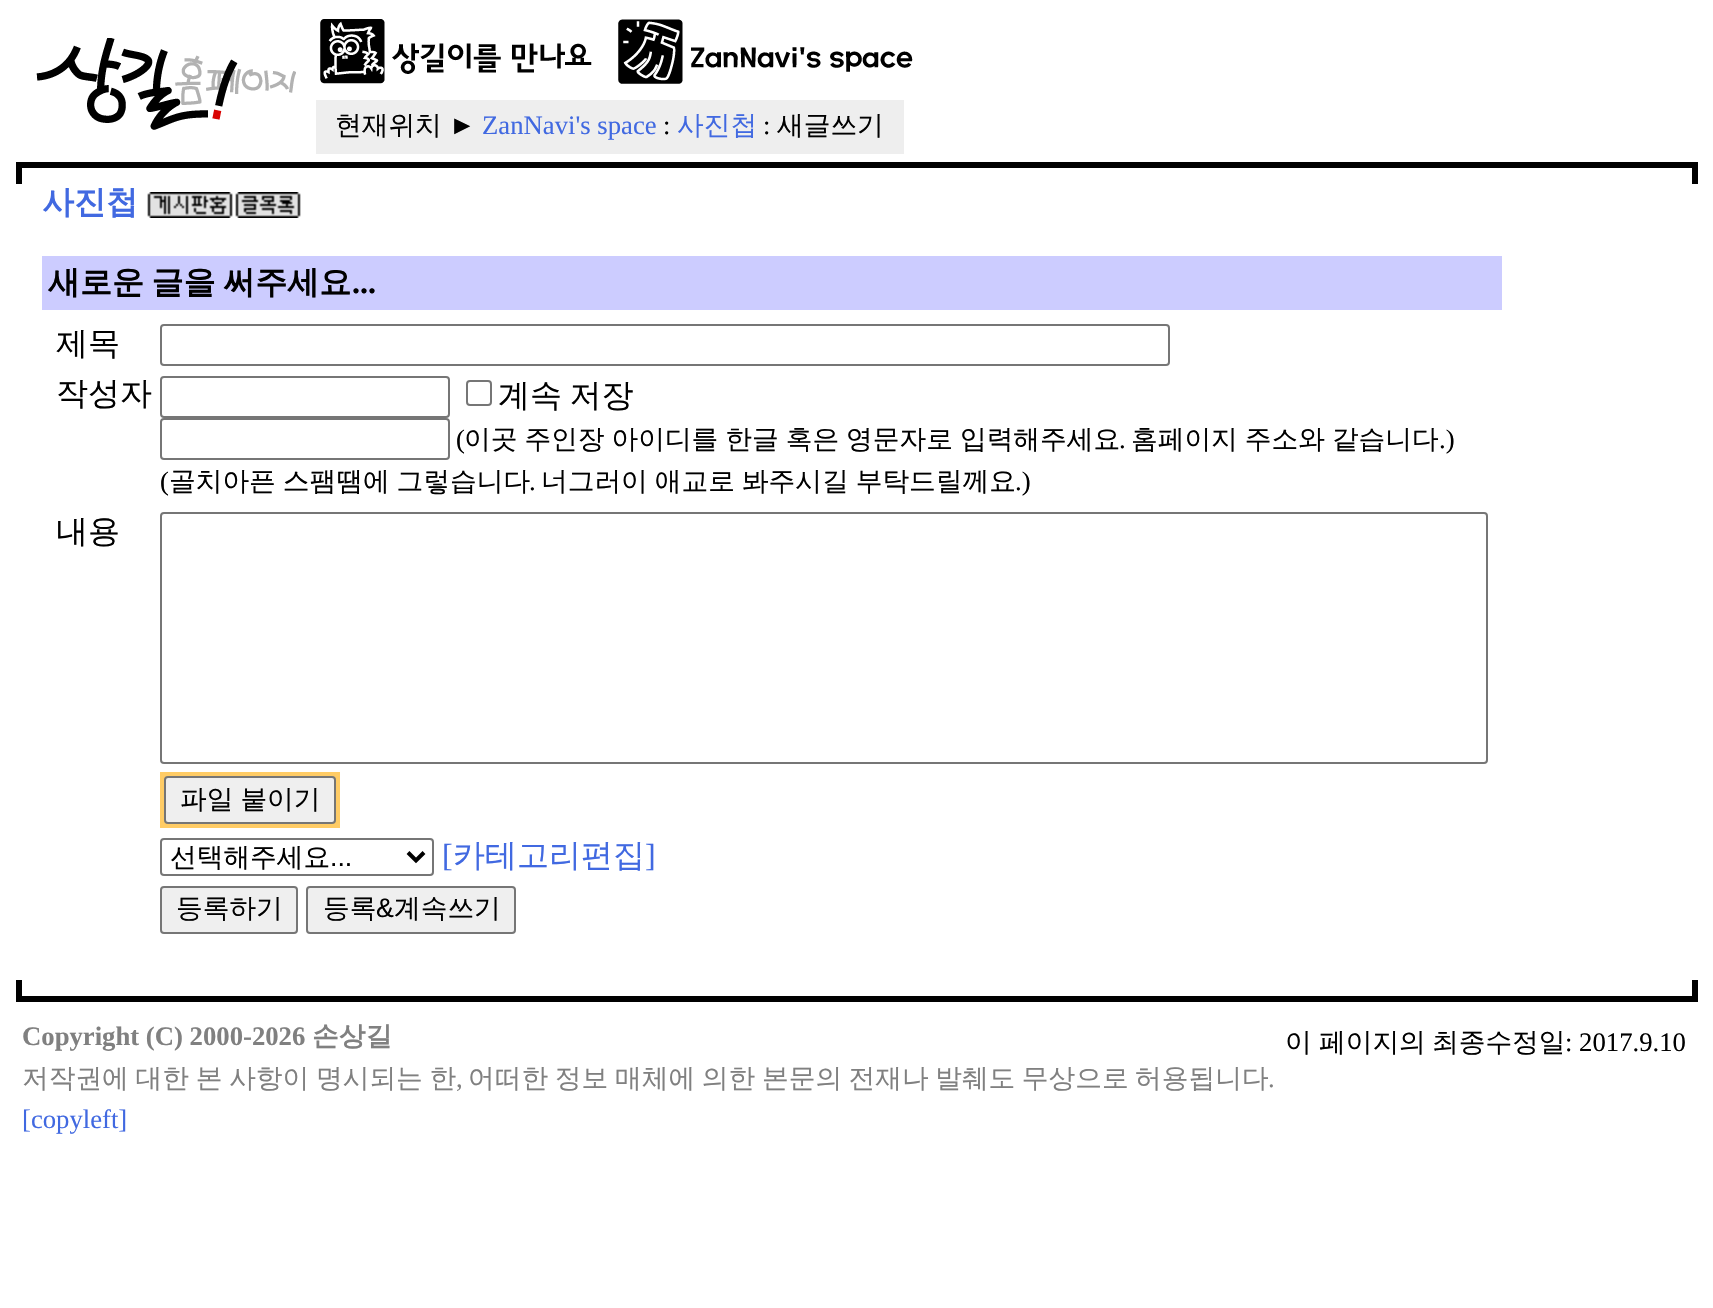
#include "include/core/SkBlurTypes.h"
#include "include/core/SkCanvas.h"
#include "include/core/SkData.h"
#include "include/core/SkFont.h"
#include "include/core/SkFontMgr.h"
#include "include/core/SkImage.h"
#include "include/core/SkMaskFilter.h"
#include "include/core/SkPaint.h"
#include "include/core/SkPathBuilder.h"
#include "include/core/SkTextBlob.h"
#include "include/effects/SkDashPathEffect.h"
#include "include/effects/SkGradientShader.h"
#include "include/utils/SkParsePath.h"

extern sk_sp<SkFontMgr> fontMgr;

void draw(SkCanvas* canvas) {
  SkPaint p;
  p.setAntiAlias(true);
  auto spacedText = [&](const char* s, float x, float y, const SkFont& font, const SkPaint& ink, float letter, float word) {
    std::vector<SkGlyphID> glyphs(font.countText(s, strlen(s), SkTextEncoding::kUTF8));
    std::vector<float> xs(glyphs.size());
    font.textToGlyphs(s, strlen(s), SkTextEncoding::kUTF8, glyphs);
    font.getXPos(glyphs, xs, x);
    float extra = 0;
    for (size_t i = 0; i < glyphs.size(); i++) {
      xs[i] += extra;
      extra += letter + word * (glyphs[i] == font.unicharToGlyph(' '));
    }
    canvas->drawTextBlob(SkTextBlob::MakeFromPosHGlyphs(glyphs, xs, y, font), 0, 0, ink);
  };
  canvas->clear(SK_ColorWHITE);
  canvas->drawImageRect(SkImages::DeferredFromEncodedData(SkData::MakeFromFileName("images/1.png")), SkRect::MakeLTRB(36, 38, 296, 130), SkSamplingOptions());
  canvas->drawImageRect(SkImages::DeferredFromEncodedData(SkData::MakeFromFileName("images/2.png")), SkRect::MakeLTRB(320, 19, 592, 84), SkSamplingOptions());
  canvas->drawImageRect(SkImages::DeferredFromEncodedData(SkData::MakeFromFileName("images/3.png")), SkRect::MakeLTRB(618, 19, 913, 84), SkSamplingOptions());
  p.setColor(SkColorSetRGB(238, 238, 238));
  canvas->drawRect(SkRect::MakeLTRB(316, 100, 904, 154), p);
  p.setColor(SK_ColorBLACK);
  canvas->drawRect(SkRect::MakeLTRB(16, 162, 1698, 168), p);
  canvas->drawRect(SkRect::MakeLTRB(16, 168, 22, 184), p);
  canvas->drawRect(SkRect::MakeLTRB(1692, 168, 1698, 184), p);
  canvas->drawImageRect(SkImages::DeferredFromEncodedData(SkData::MakeFromFileName("images/4.png")), SkRect::MakeLTRB(147, 192, 233, 218), SkSamplingOptions());
  canvas->drawImageRect(SkImages::DeferredFromEncodedData(SkData::MakeFromFileName("images/5.png")), SkRect::MakeLTRB(235, 192, 301, 218), SkSamplingOptions());
  p.setColor(SkColorSetRGB(204, 204, 255));
  canvas->drawRect(SkRect::MakeLTRB(42, 256, 1502, 310), p);
  p.setStyle(SkPaint::kStroke_Style);
  p.setStrokeWidth(2);
  p.setColor(SkColorSetRGB(118, 118, 118));
  canvas->drawRoundRect(SkRect::MakeLTRB(161, 325, 1169, 365), 3, 3, p);
  canvas->drawRoundRect(SkRect::MakeLTRB(161, 377, 449, 417), 3, 3, p);
  canvas->drawRoundRect(SkRect::MakeLTRB(467, 381, 491, 405), 3, 3, p);
  canvas->drawRoundRect(SkRect::MakeLTRB(161, 419, 449, 459), 3, 3, p);
  canvas->drawRoundRect(SkRect::MakeLTRB(161, 513, 1487, 763), 3, 3, p);
  p.setStyle(SkPaint::kFill_Style);
  p.setColor(SkColorSetRGB(255, 204, 102));
  canvas->drawRect(SkRect::MakeLTRB(160, 772, 340, 828), p);
  p.setColor(SkColorSetRGB(239, 239, 239));
  canvas->drawRoundRect(SkRect::MakeLTRB(165, 777, 335, 823), 3, 3, p);
  p.setStyle(SkPaint::kStroke_Style);
  p.setColor(SkColorSetRGB(118, 118, 118));
  canvas->drawRoundRect(SkRect::MakeLTRB(165, 777, 335, 823), 3, 3, p);
  canvas->drawRoundRect(SkRect::MakeLTRB(161, 839, 433, 875), 3, 3, p);
  p.setStrokeWidth(4);
  p.setColor(SK_ColorBLACK);
  canvas->drawPath(SkPathBuilder().moveTo(408, 852.5f).lineTo(416, 860.5f).lineTo(424, 852.5f).detach(), p);
  p.setStyle(SkPaint::kFill_Style);
  p.setColor(SkColorSetRGB(239, 239, 239));
  canvas->drawRoundRect(SkRect::MakeLTRB(161, 887, 297, 933), 3, 3, p);
  p.setStyle(SkPaint::kStroke_Style);
  p.setStrokeWidth(2);
  p.setColor(SkColorSetRGB(118, 118, 118));
  canvas->drawRoundRect(SkRect::MakeLTRB(161, 887, 297, 933), 3, 3, p);
  p.setStyle(SkPaint::kFill_Style);
  p.setColor(SkColorSetRGB(239, 239, 239));
  canvas->drawRoundRect(SkRect::MakeLTRB(307, 887, 515, 933), 3, 3, p);
  p.setStyle(SkPaint::kStroke_Style);
  p.setColor(SkColorSetRGB(118, 118, 118));
  canvas->drawRoundRect(SkRect::MakeLTRB(307, 887, 515, 933), 3, 3, p);
  p.setStyle(SkPaint::kFill_Style);
  p.setColor(SK_ColorBLACK);
  canvas->drawRect(SkRect::MakeLTRB(16, 980, 22, 996), p);
  canvas->drawRect(SkRect::MakeLTRB(1692, 980, 1698, 996), p);
  canvas->drawRect(SkRect::MakeLTRB(16, 996, 1698, 1002), p);
  SkFont font1(fontMgr->matchFamilyStyle("WenQuanYi Zen Hei", SkFontStyle(500, SkFontStyle::kNormal_Width, SkFontStyle::kUpright_Slant)), 26.7f);
  font1.setSubpixel(true);
  canvas->drawString("현재위치", 335, 134, font1, p);
  SkFont font2(fontMgr->matchFamilyStyle("Liberation Serif", SkFontStyle::Normal()), 26.7f);
  font2.setSubpixel(true);
  canvas->drawString("►", 449, 134, font2, p);
  p.setColor(SkColorSetRGB(65, 105, 225));
  canvas->drawString("ZanNavi's space", 482, 134, font2, p);
  p.setColor(SK_ColorBLACK);
  canvas->drawString(":", 663, 134, font2, p);
  p.setColor(SkColorSetRGB(65, 105, 225));
  canvas->drawString("사진첩", 677, 134, font1, p);
  p.setColor(SK_ColorBLACK);
  canvas->drawString(":", 763, 134, font2, p);
  canvas->drawString("새글쓰기", 777, 134, font1, p);
  SkFont font3(fontMgr->matchFamilyStyle("WenQuanYi Zen Hei", SkFontStyle::Bold()), 32);
  font3.setSubpixel(true);
  p.setColor(SkColorSetRGB(65, 105, 225));
  canvas->drawString("사진첩", 42, 213, font3, p);
  p.setColor(SK_ColorBLACK);
  spacedText("새로운 글을 써주세요", 48, 293, font3, p, 0, -2);
  SkFont font4(fontMgr->matchFamilyStyle("Liberation Serif", SkFontStyle::Bold()), 32);
  font4.setSubpixel(true);
  canvas->drawString("...", 352, 293, font4, p);
  SkFont font5(fontMgr->matchFamilyStyle("WenQuanYi Zen Hei", SkFontStyle(500, SkFontStyle::kNormal_Width, SkFontStyle::kUpright_Slant)), 32);
  font5.setSubpixel(true);
  canvas->drawString("제목", 56, 354, font5, p);
  canvas->drawString("작성자", 56, 404, font5, p);
  spacedText("계속 저장", 498, 406, font5, p, 0, -2);
  canvas->drawString("(", 456, 448, font2, p);
  spacedText("이곳 주인장 아이디를 한글 혹은 영문자로 입력해주세요", 464, 448, font1, p, 0, -1);
  canvas->drawString(".", 1119, 448, font2, p);
  spacedText("홈페이지 주소와 같습니다", 1131, 448, font1, p, 0, -1);
  canvas->drawString(".)", 1439, 448, font2, p);
  canvas->drawString("(", 160, 490, font2, p);
  spacedText("골치아픈 스팸땜에 그렇습니다", 169, 490, font1, p, 0, -1);
  canvas->drawString(".", 529, 490, font2, p);
  spacedText("너그러이 애교로 봐주시길 부탁드릴께요", 541, 490, font1, p, 0, -1);
  canvas->drawString(".)", 1015, 490, font2, p);
  canvas->drawString("내용", 56, 542, font5, p);
  spacedText("파일 붙이기", 180, 808, font1, p, 0, -1);
  canvas->drawString("선택해주세요", 170, 866, font1, p);
  SkFont font6(fontMgr->matchFamilyStyle("Liberation Sans", SkFontStyle::Normal()), 26.7f);
  font6.setSubpixel(true);
  canvas->drawString("...", 330, 866, font6, p);
  SkFont font7(fontMgr->matchFamilyStyle("Liberation Serif", SkFontStyle::Normal()), 32);
  font7.setSubpixel(true);
  p.setColor(SkColorSetRGB(65, 105, 225));
  canvas->drawString("[", 442, 866, font7, p);
  canvas->drawString("카테고리편집", 453, 866, font5, p);
  canvas->drawString("]", 645, 866, font7, p);
  p.setColor(SK_ColorBLACK);
  canvas->drawString("등록하기", 176, 917, font1, p);
  canvas->drawString("등록", 323, 917, font1, p);
  canvas->drawString("&", 376, 917, font6, p);
  canvas->drawString("계속쓰기", 394, 917, font1, p);
  SkFont font8(fontMgr->matchFamilyStyle("Liberation Serif", SkFontStyle::Bold()), 26.7f);
  font8.setSubpixel(true);
  p.setColor(SkColorSetRGB(128, 128, 128));
  canvas->drawString("Copyright (C) 2000-2026", 22, 1045, font8, p);
  SkFont font9(fontMgr->matchFamilyStyle("WenQuanYi Zen Hei", SkFontStyle::Bold()), 26.7f);
  font9.setSubpixel(true);
  canvas->drawString("손상길", 312, 1045, font9, p);
  p.setColor(SK_ColorBLACK);
  canvas->drawString("이", 1285, 1051, font1, p);
  canvas->drawString("페이지의", 1319, 1051, font1, p);
  canvas->drawString("최종수정일", 1432, 1051, font1, p);
  canvas->drawString(": 2017.9.10", 1565, 1051, font2, p);
  p.setColor(SkColorSetRGB(128, 128, 128));
  spacedText("저작권에 대한 본 사항이 명시되는 한", 22, 1087, font1, p, 0, -1.25f);
  canvas->drawString(",", 456, 1087, font2, p);
  spacedText("어떠한 정보 매체에 의한", 468, 1087, font1, p, 0, -1.25f);
  spacedText("본문의 전재나 발췌도 무상으로 허용됩니다", 762, 1087, font1, p, 0, -1.5f);
  canvas->drawString(".", 1268, 1087, font2, p);
  p.setColor(SkColorSetRGB(65, 105, 225));
  canvas->drawString("[copyleft]", 22, 1128, font2, p);
}
